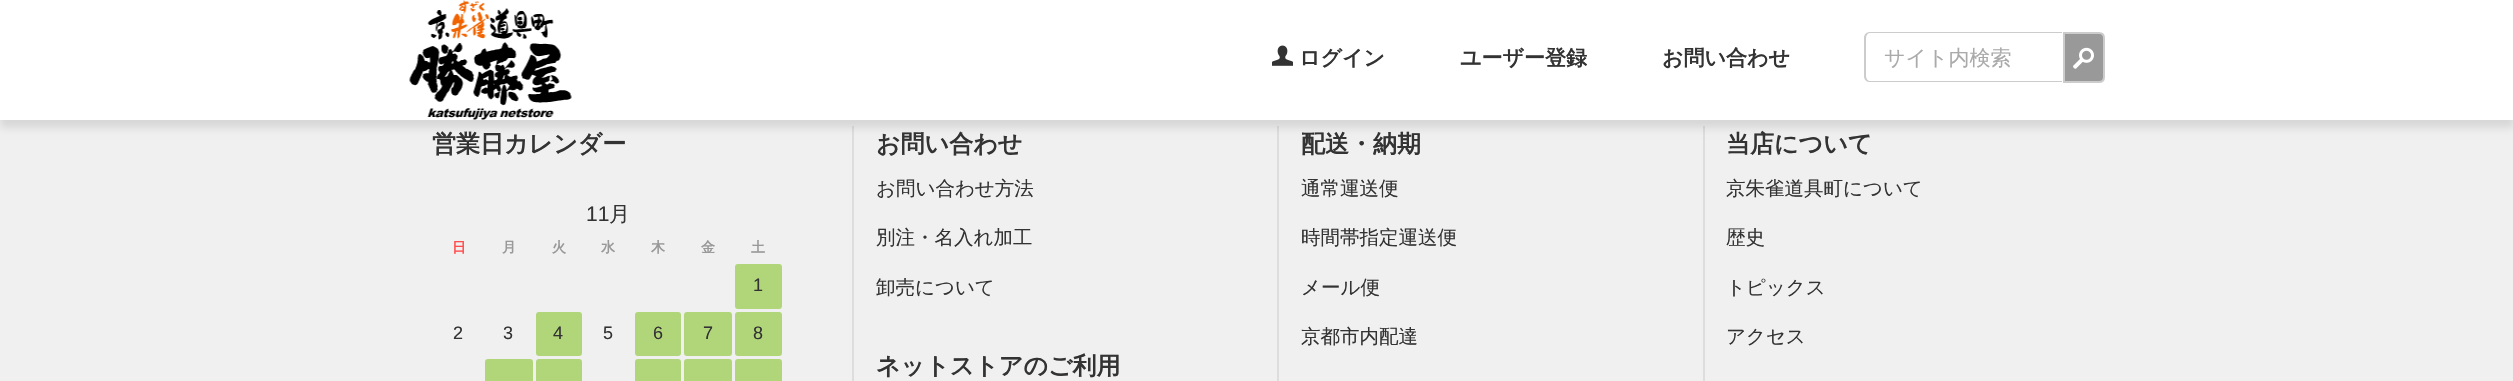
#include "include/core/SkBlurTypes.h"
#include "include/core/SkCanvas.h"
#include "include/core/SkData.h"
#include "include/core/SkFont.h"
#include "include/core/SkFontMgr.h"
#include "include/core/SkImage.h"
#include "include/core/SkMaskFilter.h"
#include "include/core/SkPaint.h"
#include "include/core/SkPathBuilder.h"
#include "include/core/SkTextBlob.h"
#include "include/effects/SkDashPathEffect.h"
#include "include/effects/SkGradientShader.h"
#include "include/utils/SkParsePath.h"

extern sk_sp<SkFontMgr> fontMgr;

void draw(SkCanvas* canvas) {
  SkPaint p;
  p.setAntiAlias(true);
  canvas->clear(SkColorSetRGB(240, 240, 240));
  p.setColor(SkColorSetRGB(221, 221, 221));
  canvas->drawRect(SkRect::MakeLTRB(852, 126, 854, 381), p);
  canvas->drawRect(SkRect::MakeLTRB(1277, 126, 1279, 381), p);
  canvas->drawRect(SkRect::MakeLTRB(1703, 126, 1705, 381), p);
  p.setColor(SkColorSetARGB(26, 0, 0, 0));
  p.setMaskFilter(SkMaskFilter::MakeBlur(kNormal_SkBlurStyle, 4));
  canvas->drawRect(SkRect::MakeLTRB(0, 8, 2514, 128), p);
  p.setMaskFilter(nullptr);
  p.setColor(SK_ColorWHITE);
  canvas->drawRect(SkRect::MakeLTRB(0, 0, 2513, 120), p);
  canvas->drawImageRect(SkImages::DeferredFromEncodedData(SkData::MakeFromFileName("images/1.png")), SkRect::MakeLTRB(409, 0, 572, 120), SkSamplingOptions());
  canvas->drawImageRect(SkImages::DeferredFromEncodedData(SkData::MakeFromFileName("images/2.png")), SkRect::MakeLTRB(1272, 45, 1293, 66), SkSamplingOptions());
  p.setColor(SkColorSetRGB(204, 204, 204));
  canvas->drawPath(SkPathBuilder(SkPathFillType::kEvenOdd).moveTo(1870, 32).lineTo(2062, 32).lineTo(2062, 82).lineTo(1870, 82).cubicTo(1867, 82, 1864, 80, 1864, 76).lineTo(1864, 38).cubicTo(1864, 34, 1867, 32, 1870, 32).close().moveTo(1870, 33).lineTo(2062, 33).lineTo(2062, 81).lineTo(1870, 81).cubicTo(1868, 81, 1866, 79, 1866, 76).lineTo(1866, 38).cubicTo(1866, 35, 1868, 33, 1870, 33).close().detach(), p);
  p.setColor(SkColorSetRGB(153, 153, 153));
  canvas->drawPath(SkPathBuilder().moveTo(2064, 33).lineTo(2099, 33).cubicTo(2102, 33, 2104, 35, 2104, 38).lineTo(2104, 77).cubicTo(2104, 80, 2102, 82, 2099, 82).lineTo(2064, 82).close().detach(), p);
  p.setStyle(SkPaint::kStroke_Style);
  p.setStrokeWidth(2);
  p.setColor(SkColorSetRGB(204, 204, 204));
  canvas->drawPath(SkPathBuilder().moveTo(2064, 33).lineTo(2099, 33).cubicTo(2102, 33, 2104, 35, 2104, 38).lineTo(2104, 77).cubicTo(2104, 80, 2102, 82, 2099, 82).lineTo(2064, 82).close().detach(), p);
  canvas->drawImageRect(SkImages::DeferredFromEncodedData(SkData::MakeFromFileName("images/3.png")), SkRect::MakeLTRB(2073, 47, 2094, 69), SkSamplingOptions());
  p.setStyle(SkPaint::kFill_Style);
  p.setColor(SkColorSetRGB(177, 214, 122));
  canvas->drawRoundRect(SkRect::MakeLTRB(735, 264, 782, 309), 3, 3, p);
  canvas->drawRoundRect(SkRect::MakeLTRB(536, 312, 582, 356), 3, 3, p);
  canvas->drawRoundRect(SkRect::MakeLTRB(635, 312, 681, 356), 3, 3, p);
  canvas->drawRoundRect(SkRect::MakeLTRB(684, 312, 732, 356), 3, 3, p);
  canvas->drawRoundRect(SkRect::MakeLTRB(735, 312, 782, 356), 3, 3, p);
  canvas->drawRoundRect(SkRect::MakeLTRB(485, 359, 533, 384), 3, 3, p);
  canvas->drawRoundRect(SkRect::MakeLTRB(536, 359, 582, 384), 3, 3, p);
  canvas->drawRoundRect(SkRect::MakeLTRB(635, 359, 681, 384), 3, 3, p);
  canvas->drawRoundRect(SkRect::MakeLTRB(684, 359, 732, 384), 3, 3, p);
  canvas->drawRoundRect(SkRect::MakeLTRB(735, 359, 782, 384), 3, 3, p);
  SkFont font1(fontMgr->matchFamilyStyle("WenQuanYi Zen Hei", SkFontStyle::Bold()), 21);
  font1.setSubpixel(true);
  p.setColor(SkColorSetRGB(51, 51, 51));
  canvas->drawString("ログイン", 1299, 65, font1, p);
  canvas->drawString("ユーザー登録", 1460, 65, font1, p);
  canvas->drawString("お問い合わせ", 1662, 65, font1, p);
  SkFont font2(fontMgr->matchFamilyStyle("WenQuanYi Zen Hei", SkFontStyle(500, SkFontStyle::kNormal_Width, SkFontStyle::kUpright_Slant)), 21);
  font2.setSubpixel(true);
  p.setColor(SkColorSetRGB(170, 170, 170));
  canvas->drawString("サイト内検索", 1884, 65, font2, p);
  SkFont font3(fontMgr->matchFamilyStyle("WenQuanYi Zen Hei", SkFontStyle::Bold()), 24);
  font3.setSubpixel(true);
  p.setColor(SkColorSetRGB(51, 51, 51));
  canvas->drawString("営業日カレンダー", 432, 152, font3, p);
  SkFont font4(fontMgr->matchFamilyStyle("Liberation Sans", SkFontStyle::Normal()), 21);
  font4.setSubpixel(true);
  canvas->drawString("11", 586, 221, font4, p);
  canvas->drawString("月", 609, 221, font2, p);
  SkFont font5(fontMgr->matchFamilyStyle("WenQuanYi Zen Hei", SkFontStyle::Bold()), 14);
  font5.setSubpixel(true);
  p.setColor(SkColorSetRGB(255, 77, 77));
  canvas->drawString("日", 452, 252, font5, p);
  p.setColor(SkColorSetRGB(153, 153, 153));
  canvas->drawString("月", 502, 252, font5, p);
  canvas->drawString("火", 552, 252, font5, p);
  canvas->drawString("水", 601, 252, font5, p);
  canvas->drawString("木", 651, 252, font5, p);
  canvas->drawString("金", 701, 252, font5, p);
  canvas->drawString("土", 751, 252, font5, p);
  SkFont font6(fontMgr->matchFamilyStyle("Liberation Sans", SkFontStyle::Normal()), 18);
  font6.setSubpixel(true);
  p.setColor(SkColorSetRGB(51, 51, 51));
  canvas->drawString("1", 753, 291, font6, p);
  canvas->drawString("2", 453, 339, font6, p);
  canvas->drawString("3", 503, 339, font6, p);
  canvas->drawString("4", 553, 339, font6, p);
  canvas->drawString("5", 603, 339, font6, p);
  canvas->drawString("6", 653, 339, font6, p);
  canvas->drawString("7", 703, 339, font6, p);
  canvas->drawString("8", 753, 339, font6, p);
  canvas->drawString("お問い合わせ", 876, 152, font3, p);
  SkFont font7(fontMgr->matchFamilyStyle("WenQuanYi Zen Hei", SkFontStyle(500, SkFontStyle::kNormal_Width, SkFontStyle::kUpright_Slant)), 19.5f);
  font7.setSubpixel(true);
  canvas->drawString("お問い合わせ方法", 876, 195, font7, p);
  canvas->drawString("別注・名入れ加工", 876, 244, font7, p);
  canvas->drawString("卸売について", 876, 294, font7, p);
  canvas->drawString("ネットストアのご利用", 876, 374, font3, p);
  canvas->drawString("配送・納期", 1301, 152, font3, p);
  canvas->drawString("通常運送便", 1301, 195, font7, p);
  canvas->drawString("時間帯指定運送便", 1301, 244, font7, p);
  canvas->drawString("メール便", 1301, 294, font7, p);
  canvas->drawString("京都市内配達", 1301, 343, font7, p);
  canvas->drawString("当店について", 1726, 152, font3, p);
  canvas->drawString("京朱雀道具町について", 1726, 195, font7, p);
  canvas->drawString("歴史", 1726, 244, font7, p);
  canvas->drawString("トピックス", 1726, 294, font7, p);
  canvas->drawString("アクセス", 1726, 343, font7, p);
}
